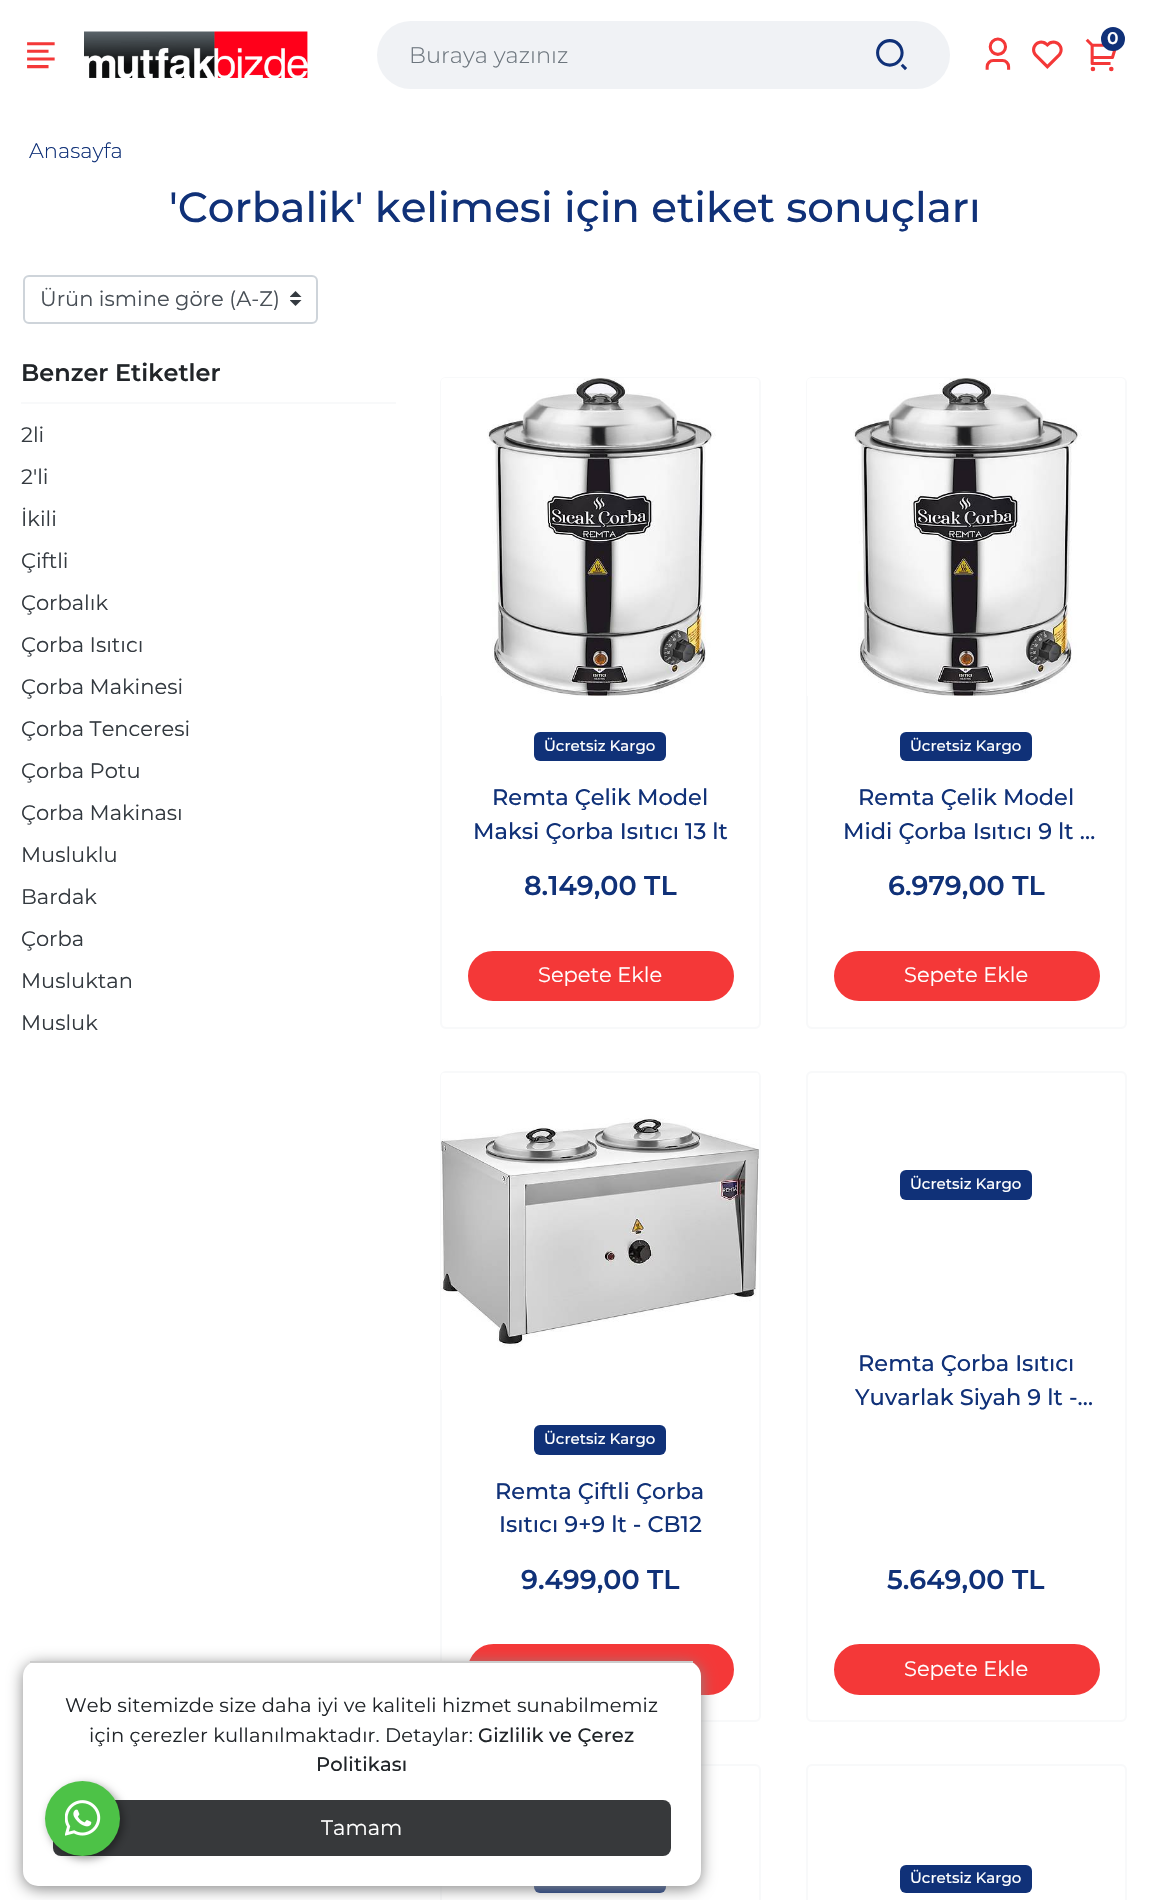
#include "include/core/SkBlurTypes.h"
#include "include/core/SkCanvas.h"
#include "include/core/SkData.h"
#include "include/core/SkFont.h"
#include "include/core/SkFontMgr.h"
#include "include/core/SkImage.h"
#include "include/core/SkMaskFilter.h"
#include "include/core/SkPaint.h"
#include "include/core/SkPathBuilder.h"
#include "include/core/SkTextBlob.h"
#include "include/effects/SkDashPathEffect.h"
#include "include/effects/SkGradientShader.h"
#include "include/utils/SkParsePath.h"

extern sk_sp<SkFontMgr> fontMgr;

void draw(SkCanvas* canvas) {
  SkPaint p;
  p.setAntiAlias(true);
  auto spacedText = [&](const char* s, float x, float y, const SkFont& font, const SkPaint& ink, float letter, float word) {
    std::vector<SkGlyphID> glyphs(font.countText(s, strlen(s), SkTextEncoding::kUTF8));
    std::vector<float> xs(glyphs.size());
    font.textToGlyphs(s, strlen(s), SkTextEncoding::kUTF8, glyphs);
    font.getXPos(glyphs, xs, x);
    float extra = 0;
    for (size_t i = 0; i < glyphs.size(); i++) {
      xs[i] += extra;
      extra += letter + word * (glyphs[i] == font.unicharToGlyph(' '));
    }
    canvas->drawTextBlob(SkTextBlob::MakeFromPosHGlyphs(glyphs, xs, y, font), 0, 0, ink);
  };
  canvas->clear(SK_ColorWHITE);
  canvas->drawImageRect(SkImages::DeferredFromEncodedData(SkData::MakeFromFileName("images/1.png")), SkRect::MakeLTRB(84, 31, 308, 78), SkSamplingOptions());
  canvas->drawImageRect(SkImages::DeferredFromEncodedData(SkData::MakeFromFileName("images/2.png")), SkRect::MakeLTRB(985, 37, 1011, 70), SkSamplingOptions());
  canvas->drawImageRect(SkImages::DeferredFromEncodedData(SkData::MakeFromFileName("images/3.png")), SkRect::MakeLTRB(1032, 40, 1063, 69), SkSamplingOptions());
  canvas->drawImageRect(SkImages::DeferredFromEncodedData(SkData::MakeFromFileName("images/4.png")), SkRect::MakeLTRB(1085, 38, 1117, 72), SkSamplingOptions());
  p.setColor(SkColorSetRGB(16, 49, 120));
  canvas->drawCircle(1113, 39, 11, p);
  p.setStyle(SkPaint::kStroke_Style);
  p.setStrokeWidth(2);
  canvas->drawCircle(1113, 39, 11, p);
  canvas->drawImageRect(SkImages::DeferredFromEncodedData(SkData::MakeFromFileName("images/5.png")), SkRect::MakeLTRB(27, 42, 55, 69), SkSamplingOptions());
  p.setStyle(SkPaint::kFill_Style);
  p.setColor(SkColorSetRGB(240, 242, 245));
  canvas->drawRoundRect(SkRect::MakeLTRB(377, 21, 950, 89), 34, 34, p);
  canvas->drawImageRect(SkImages::DeferredFromEncodedData(SkData::MakeFromFileName("images/6.png")), SkRect::MakeLTRB(876, 39, 907, 71), SkSamplingOptions());
  p.setStyle(SkPaint::kStroke_Style);
  p.setColor(SkColorSetRGB(248, 249, 250));
  canvas->drawRoundRect(SkRect::MakeLTRB(441, 1072, 760, 1721), 5, 5, p);
  p.setStyle(SkPaint::kFill_Style);
  p.setColor(SkColorSetRGB(244, 56, 56));
  canvas->drawRoundRect(SkRect::MakeLTRB(469, 1645, 733, 1694), 24.5f, 24.5f, p);
  p.setStyle(SkPaint::kStroke_Style);
  canvas->drawRoundRect(SkRect::MakeLTRB(469, 1645, 733, 1694), 24.5f, 24.5f, p);
  p.setColor(SkColorSetRGB(248, 249, 250));
  canvas->drawRoundRect(SkRect::MakeLTRB(441, 1765, 760, 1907), 5, 5, p);
  p.setStyle(SkPaint::kFill_Style);
  p.setColor(SkColorSetRGB(16, 49, 120));
  canvas->drawRoundRect(SkRect::MakeLTRB(534, 1865, 666, 1893), 6, 6, p);
  p.setColor(SkColorSetRGB(136, 136, 136));
  p.setMaskFilter(SkMaskFilter::MakeBlur(kNormal_SkBlurStyle, 7.5f));
  canvas->drawRoundRect(SkRect::MakeLTRB(23, 1664, 701, 1889), 15, 15, p);
  p.setMaskFilter(nullptr);
  p.setColor(SK_ColorWHITE);
  canvas->drawRoundRect(SkRect::MakeLTRB(23, 1661, 701, 1886), 15, 15, p);
  p.setColor(SkColorSetRGB(204, 204, 204));
  canvas->drawRect(SkRect::MakeLTRB(30, 1661, 693, 1663), p);
  p.setColor(SkColorSetRGB(55, 57, 59));
  canvas->drawRoundRect(SkRect::MakeLTRB(53, 1800, 671, 1856), 8, 8, p);
  canvas->drawImageRect(SkImages::DeferredFromEncodedData(SkData::MakeFromFileName("images/7.png")), SkRect::MakeLTRB(290, 291, 302, 306), SkSamplingOptions());
  p.setStyle(SkPaint::kStroke_Style);
  p.setColor(SkColorSetRGB(206, 212, 218));
  canvas->drawRoundRect(SkRect::MakeLTRB(24, 276, 317, 323), 5, 5, p);
  p.setStyle(SkPaint::kFill_Style);
  p.setColor(SkColorSetRGB(248, 249, 250));
  canvas->drawRect(SkRect::MakeLTRB(21, 402, 396, 404), p);
  p.setStyle(SkPaint::kStroke_Style);
  canvas->drawRoundRect(SkRect::MakeLTRB(441, 378, 760, 1028), 5, 5, p);
  canvas->drawImageRect(SkImages::DeferredFromEncodedData(SkData::MakeFromFileName("images/8.png")), SkRect::MakeLTRB(441, 378, 759, 696), SkSamplingOptions());
  p.setStyle(SkPaint::kFill_Style);
  p.setColor(SkColorSetRGB(16, 49, 120));
  canvas->drawRoundRect(SkRect::MakeLTRB(534, 732, 666, 761), 6, 6, p);
  p.setColor(SkColorSetRGB(244, 56, 56));
  canvas->drawRoundRect(SkRect::MakeLTRB(469, 952, 733, 1000), 24, 24, p);
  p.setStyle(SkPaint::kStroke_Style);
  canvas->drawRoundRect(SkRect::MakeLTRB(469, 952, 733, 1000), 24, 24, p);
  p.setColor(SkColorSetRGB(248, 249, 250));
  canvas->drawRoundRect(SkRect::MakeLTRB(807, 378, 1126, 1028), 5, 5, p);
  canvas->drawImageRect(SkImages::DeferredFromEncodedData(SkData::MakeFromFileName("images/8.png")), SkRect::MakeLTRB(807, 378, 1125, 696), SkSamplingOptions());
  p.setStyle(SkPaint::kFill_Style);
  p.setColor(SkColorSetRGB(16, 49, 120));
  canvas->drawRoundRect(SkRect::MakeLTRB(900, 732, 1032, 761), 6, 6, p);
  p.setColor(SkColorSetRGB(244, 56, 56));
  canvas->drawRoundRect(SkRect::MakeLTRB(835, 952, 1099, 1000), 24, 24, p);
  p.setStyle(SkPaint::kStroke_Style);
  canvas->drawRoundRect(SkRect::MakeLTRB(835, 952, 1099, 1000), 24, 24, p);
  canvas->drawImageRect(SkImages::DeferredFromEncodedData(SkData::MakeFromFileName("images/9.png")), SkRect::MakeLTRB(441, 1073, 759, 1390), SkSamplingOptions());
  p.setStyle(SkPaint::kFill_Style);
  p.setColor(SkColorSetRGB(16, 49, 120));
  canvas->drawRoundRect(SkRect::MakeLTRB(534, 1425, 666, 1455), 6, 6, p);
  p.setStyle(SkPaint::kStroke_Style);
  p.setColor(SkColorSetRGB(248, 249, 250));
  canvas->drawRoundRect(SkRect::MakeLTRB(807, 1072, 1126, 1721), 5, 5, p);
  p.setStyle(SkPaint::kFill_Style);
  p.setColor(SkColorSetRGB(16, 49, 120));
  canvas->drawRoundRect(SkRect::MakeLTRB(900, 1170, 1032, 1200), 6, 6, p);
  p.setColor(SkColorSetRGB(244, 56, 56));
  canvas->drawRoundRect(SkRect::MakeLTRB(835, 1645, 1099, 1694), 24.5f, 24.5f, p);
  p.setStyle(SkPaint::kStroke_Style);
  canvas->drawRoundRect(SkRect::MakeLTRB(835, 1645, 1099, 1694), 24.5f, 24.5f, p);
  p.setColor(SkColorSetRGB(248, 249, 250));
  canvas->drawRoundRect(SkRect::MakeLTRB(807, 1765, 1126, 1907), 5, 5, p);
  p.setStyle(SkPaint::kFill_Style);
  p.setColor(SkColorSetRGB(16, 49, 120));
  canvas->drawRoundRect(SkRect::MakeLTRB(900, 1865, 1032, 1893), 6, 6, p);
  p.setColor(SkColorSetARGB(102, 0, 0, 0));
  p.setMaskFilter(SkMaskFilter::MakeBlur(kNormal_SkBlurStyle, 4.5f));
  canvas->drawRoundRect(SkRect::MakeLTRB(48, 1784, 123, 1859), 37.5f, 37.5f, p);
  p.setMaskFilter(nullptr);
  p.setColor(SkColorSetRGB(77, 194, 71));
  canvas->drawCircle(82.5f, 1818.5f, 37.5f, p);
  canvas->drawImageRect(SkImages::DeferredFromEncodedData(SkData::MakeFromFileName("images/10.png")), SkRect::MakeLTRB(65, 1800, 101, 1836), SkSamplingOptions());
  SkFont font1(fontMgr->matchFamilyStyle("Montserrat", SkFontStyle(600, SkFontStyle::kNormal_Width, SkFontStyle::kUpright_Slant)), 17);
  font1.setSubpixel(true);
  p.setColor(SK_ColorWHITE);
  canvas->drawString("0", 1107, 44, font1, p);
  SkFont font2(fontMgr->matchFamilyStyle("Montserrat", SkFontStyle(300, SkFontStyle::kNormal_Width, SkFontStyle::kUpright_Slant)), 22.5f);
  font2.setSubpixel(true);
  p.setColor(SkColorSetRGB(108, 117, 125));
  canvas->drawString("Buraya yazınız", 409, 63, font2, p);
  SkFont font3(fontMgr->matchFamilyStyle("Montserrat", SkFontStyle(300, SkFontStyle::kNormal_Width, SkFontStyle::kUpright_Slant)), 21);
  font3.setSubpixel(true);
  p.setColor(SkColorSetRGB(16, 49, 120));
  canvas->drawString("Anasayfa", 29, 158, font3, p);
  SkFont font4(fontMgr->matchFamilyStyle("Montserrat", SkFontStyle(500, SkFontStyle::kNormal_Width, SkFontStyle::kUpright_Slant)), 42);
  font4.setSubpixel(true);
  canvas->drawString("'Corbalik' kelimesi için etiket sonuçları", 169, 222, font4, p);
  SkFont font5(fontMgr->matchFamilyStyle("Montserrat", SkFontStyle::Normal()), 19.5f);
  font5.setSubpixel(true);
  p.setColor(SkColorSetRGB(33, 37, 41));
  spacedText("Web sitemizde size daha iyi ve kaliteli hizmet sunabilmemiz", 65, 1712, font5, p, 0.15f, 0);
  spacedText("için çerezler kullanılmaktadır. Detaylar:", 89, 1742, font5, p, 0.15f, 0);
  SkFont font6(fontMgr->matchFamilyStyle("Montserrat", SkFontStyle(500, SkFontStyle::kNormal_Width, SkFontStyle::kUpright_Slant)), 19.5f);
  font6.setSubpixel(true);
  spacedText("Gizlilik ve Çerez", 478, 1742, font6, p, 0.15f, 0);
  spacedText("Politikası", 316, 1771, font6, p, 0.15f, 0);
  SkFont font7(fontMgr->matchFamilyStyle("Montserrat", SkFontStyle::Normal()), 21);
  font7.setSubpixel(true);
  p.setColor(SK_ColorWHITE);
  canvas->drawString("Tamam", 321, 1835, font7, p);
  p.setColor(SkColorSetRGB(73, 80, 87));
  canvas->drawString("Ürün ismine göre (A-Z)", 40, 306, font7, p);
  SkFont font8(fontMgr->matchFamilyStyle("Montserrat", SkFontStyle(600, SkFontStyle::kNormal_Width, SkFontStyle::kUpright_Slant)), 24);
  font8.setSubpixel(true);
  p.setColor(SkColorSetRGB(33, 37, 41));
  canvas->drawString("Benzer Etiketler", 21, 381, font8, p);
  p.setColor(SkColorSetRGB(52, 58, 64));
  canvas->drawString("2li", 21, 442, font7, p);
  canvas->drawString("2'li", 21, 484, font7, p);
  canvas->drawString("İkili", 21, 526, font7, p);
  canvas->drawString("Çiftli", 21, 568, font7, p);
  canvas->drawString("Çorbalık", 21, 610, font7, p);
  canvas->drawString("Çorba Isıtıcı", 21, 652, font7, p);
  canvas->drawString("Çorba Makinesi", 21, 694, font7, p);
  canvas->drawString("Çorba Tenceresi", 21, 736, font7, p);
  canvas->drawString("Çorba Potu", 21, 778, font7, p);
  canvas->drawString("Çorba Makinası", 21, 820, font7, p);
  canvas->drawString("Musluklu", 21, 862, font7, p);
  canvas->drawString("Bardak", 21, 904, font7, p);
  canvas->drawString("Çorba", 21, 946, font7, p);
  canvas->drawString("Musluktan", 21, 988, font7, p);
  canvas->drawString("Musluk", 21, 1030, font7, p);
  SkFont font9(fontMgr->matchFamilyStyle("Montserrat", SkFontStyle(500, SkFontStyle::kNormal_Width, SkFontStyle::kUpright_Slant)), 15);
  font9.setSubpixel(true);
  p.setColor(SK_ColorWHITE);
  canvas->drawString("Ücretsiz Kargo", 544, 751, font9, p);
  SkFont font10(fontMgr->matchFamilyStyle("Montserrat", SkFontStyle(500, SkFontStyle::kNormal_Width, SkFontStyle::kUpright_Slant)), 22.5f);
  font10.setSubpixel(true);
  p.setColor(SkColorSetRGB(16, 49, 120));
  canvas->drawString("Remta Çelik Model", 492, 805, font10, p);
  canvas->drawString("Maksi Çorba Isıtıcı 13 lt", 473, 839, font10, p);
  SkFont font11(fontMgr->matchFamilyStyle("Montserrat", SkFontStyle(600, SkFontStyle::kNormal_Width, SkFontStyle::kUpright_Slant)), 27);
  font11.setSubpixel(true);
  canvas->drawString("8.149,00 TL", 524, 895, font11, p);
  p.setColor(SK_ColorWHITE);
  canvas->drawString("Sepete Ekle", 538, 982, font7, p);
  canvas->drawString("Ücretsiz Kargo", 910, 751, font9, p);
  p.setColor(SkColorSetRGB(16, 49, 120));
  canvas->drawString("Remta Çelik Model", 858, 805, font10, p);
  canvas->drawString("Midi Çorba Isıtıcı 9 lt …", 843, 839, font10, p);
  canvas->drawString("6.979,00 TL", 888, 895, font11, p);
  p.setColor(SK_ColorWHITE);
  canvas->drawString("Sepete Ekle", 904, 982, font7, p);
  canvas->drawString("Ücretsiz Kargo", 544, 1444, font9, p);
  p.setColor(SkColorSetRGB(16, 49, 120));
  canvas->drawString("Remta Çiftli Çorba", 495, 1499, font10, p);
  canvas->drawString("Isıtıcı 9+9 lt - CB12", 499, 1532, font10, p);
  canvas->drawString("9.499,00 TL", 521, 1589, font11, p);
  p.setColor(SK_ColorWHITE);
  canvas->drawString("Ücretsiz Kargo", 910, 1189, font9, p);
  p.setColor(SkColorSetRGB(16, 49, 120));
  canvas->drawString("Remta Çorba Isıtıcı", 858, 1371, font10, p);
  canvas->drawString("Yuvarlak Siyah 9 lt -…", 855, 1405, font10, p);
  canvas->drawString("5.649,00 TL", 887, 1589, font11, p);
  p.setColor(SK_ColorWHITE);
  canvas->drawString("Sepete Ekle", 904, 1676, font7, p);
  canvas->drawString("Ücretsiz Kargo", 910, 1883, font9, p);
}
